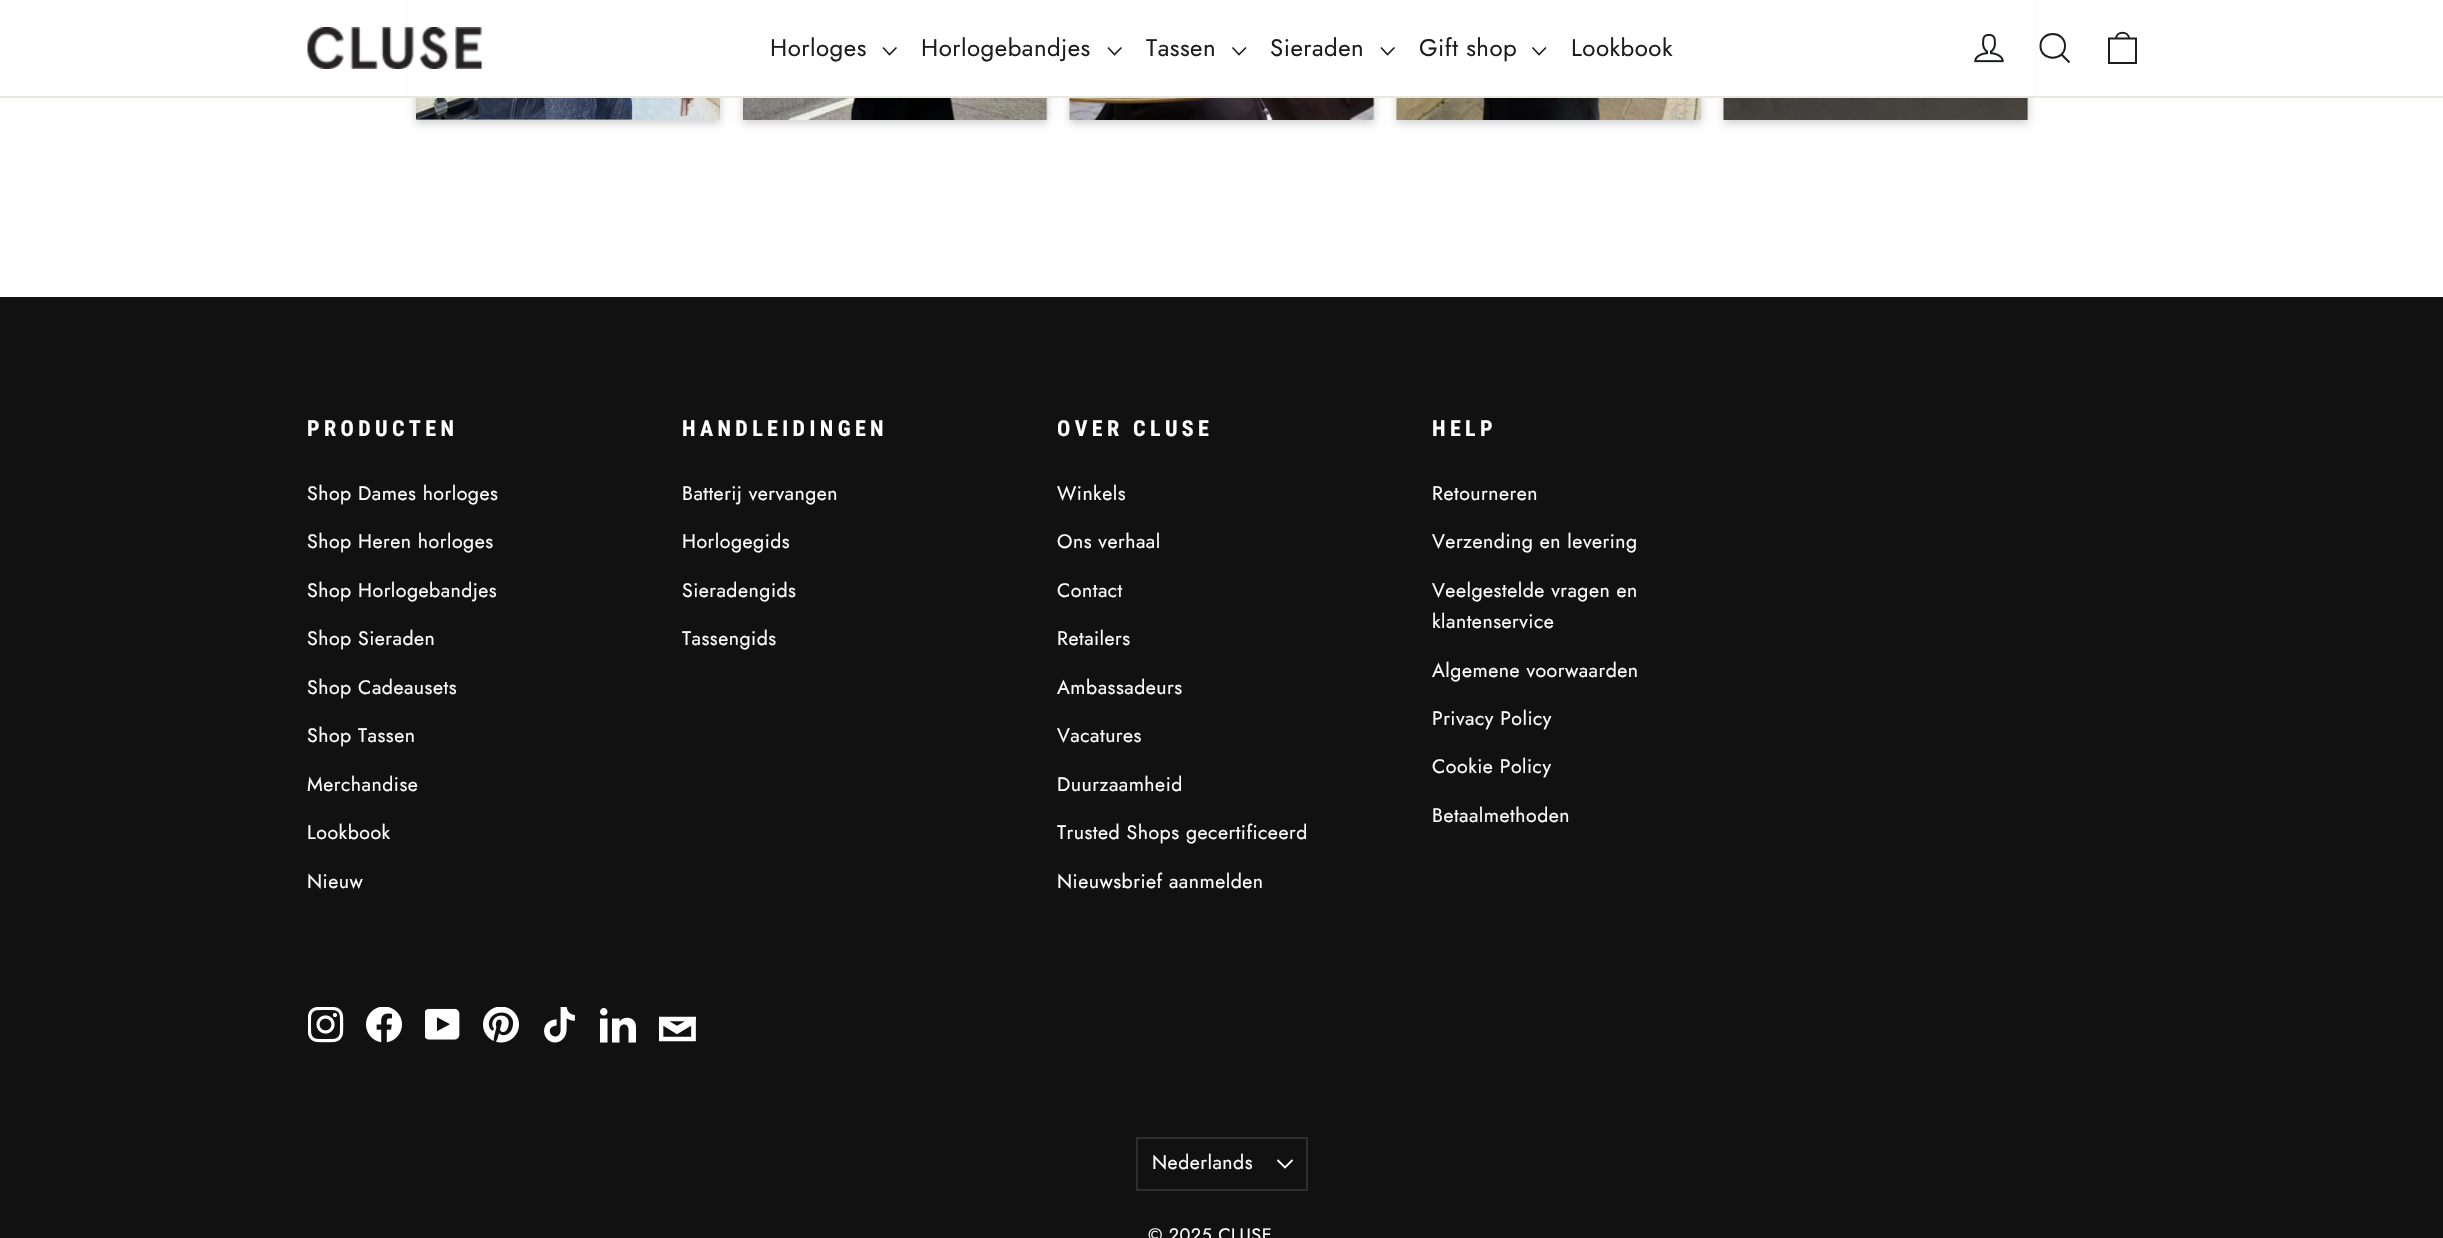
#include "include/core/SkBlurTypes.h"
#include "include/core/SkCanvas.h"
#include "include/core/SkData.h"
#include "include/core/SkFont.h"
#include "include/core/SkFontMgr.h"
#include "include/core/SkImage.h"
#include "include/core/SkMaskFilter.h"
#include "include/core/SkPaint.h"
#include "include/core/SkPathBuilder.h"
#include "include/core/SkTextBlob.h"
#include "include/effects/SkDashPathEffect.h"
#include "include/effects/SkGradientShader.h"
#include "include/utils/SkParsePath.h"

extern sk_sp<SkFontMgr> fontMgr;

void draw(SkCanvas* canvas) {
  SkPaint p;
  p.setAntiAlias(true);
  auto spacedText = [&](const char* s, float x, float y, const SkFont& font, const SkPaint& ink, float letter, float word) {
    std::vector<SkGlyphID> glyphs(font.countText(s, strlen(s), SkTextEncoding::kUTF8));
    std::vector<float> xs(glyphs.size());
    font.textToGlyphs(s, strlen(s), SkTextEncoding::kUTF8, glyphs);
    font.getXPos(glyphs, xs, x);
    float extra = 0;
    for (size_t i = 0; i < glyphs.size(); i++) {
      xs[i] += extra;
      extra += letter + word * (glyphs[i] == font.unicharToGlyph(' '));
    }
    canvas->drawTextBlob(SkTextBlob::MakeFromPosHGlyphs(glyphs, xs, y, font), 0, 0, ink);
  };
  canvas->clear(SK_ColorWHITE);
  p.setColor(SkColorSetARGB(51, 0, 0, 0));
  p.setMaskFilter(SkMaskFilter::MakeBlur(kNormal_SkBlurStyle, 4.5f));
  canvas->drawRect(SkRect::MakeLTRB(416, -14, 720, 123), p);
  p.setMaskFilter(nullptr);
  canvas->drawImageRect(SkImages::DeferredFromEncodedData(SkData::MakeFromFileName("images/1.png")), SkRect::MakeLTRB(416, 98, 720, 120), SkSamplingOptions());
  p.setMaskFilter(SkMaskFilter::MakeBlur(kNormal_SkBlurStyle, 4.5f));
  canvas->drawRect(SkRect::MakeLTRB(743, -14, 1047, 123), p);
  p.setMaskFilter(nullptr);
  canvas->drawImageRect(SkImages::DeferredFromEncodedData(SkData::MakeFromFileName("images/2.png")), SkRect::MakeLTRB(743, 98, 1048, 120), SkSamplingOptions());
  p.setMaskFilter(SkMaskFilter::MakeBlur(kNormal_SkBlurStyle, 4.5f));
  canvas->drawRect(SkRect::MakeLTRB(1070, -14, 1374, 123), p);
  p.setMaskFilter(nullptr);
  canvas->drawImageRect(SkImages::DeferredFromEncodedData(SkData::MakeFromFileName("images/3.png")), SkRect::MakeLTRB(1069, 98, 1375, 120), SkSamplingOptions());
  p.setMaskFilter(SkMaskFilter::MakeBlur(kNormal_SkBlurStyle, 4.5f));
  canvas->drawRect(SkRect::MakeLTRB(1397, -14, 1701, 123), p);
  p.setMaskFilter(nullptr);
  canvas->drawImageRect(SkImages::DeferredFromEncodedData(SkData::MakeFromFileName("images/4.png")), SkRect::MakeLTRB(1396, 98, 1702, 120), SkSamplingOptions());
  p.setMaskFilter(SkMaskFilter::MakeBlur(kNormal_SkBlurStyle, 4.5f));
  canvas->drawRect(SkRect::MakeLTRB(1724, -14, 2028, 123), p);
  p.setMaskFilter(nullptr);
  canvas->drawImageRect(SkImages::DeferredFromEncodedData(SkData::MakeFromFileName("images/5.png")), SkRect::MakeLTRB(1723, 98, 2028, 120), SkSamplingOptions());
  p.setColor(SK_ColorWHITE);
  canvas->drawRect(SkRect::MakeLTRB(409, 0, 2035, 96), p);
  p.setColor(SkColorSetRGB(232, 232, 225));
  canvas->drawRect(SkRect::MakeLTRB(0, 96, 2443, 98), p);
  canvas->drawImageRect(SkImages::DeferredFromEncodedData(SkData::MakeFromFileName("images/6.png")), SkRect::MakeLTRB(307, 27, 483, 69), SkSamplingOptions());
  p.setStyle(SkPaint::kStroke_Style);
  p.setStrokeWidth(1.6f);
  p.setColor(SkColorSetRGB(28, 29, 29));
  canvas->drawPath(SkPathBuilder().moveTo(883, 47.5f).lineTo(889.5f, 54.5f).lineTo(896.5f, 47.5f).detach(), p);
  canvas->drawPath(SkPathBuilder().moveTo(1108, 47.5f).lineTo(1114.5f, 54.5f).lineTo(1121.5f, 47.5f).detach(), p);
  canvas->drawPath(SkPathBuilder().moveTo(1232.5f, 47.5f).lineTo(1239, 54.5f).lineTo(1246, 47.5f).detach(), p);
  canvas->drawPath(SkPathBuilder().moveTo(1381, 47.5f).lineTo(1387.5f, 54.5f).lineTo(1394.5f, 47.5f).detach(), p);
  canvas->drawPath(SkPathBuilder().moveTo(1532.5f, 47.5f).lineTo(1539, 54.5f).lineTo(1546, 47.5f).detach(), p);
  canvas->drawImageRect(SkImages::DeferredFromEncodedData(SkData::MakeFromFileName("images/7.png")), SkRect::MakeLTRB(1974, 33, 2004, 63), SkSamplingOptions());
  p.setStrokeWidth(2);
  canvas->drawPath(SkPathBuilder().moveTo(2065, 46).cubicTo(2065, 61.5f, 2040.5f, 61.5f, 2040.5f, 46).cubicTo(2040.5f, 30, 2065, 30, 2065, 46).close().moveTo(2069.5f, 62.5f).lineTo(2061.5f, 54.5f).detach(), p);
  canvas->drawPath(SkPathBuilder().moveTo(2109, 38.5f).lineTo(2136, 38.5f).lineTo(2136, 63).lineTo(2109, 63).close().moveTo(2116, 39).cubicTo(2116, 30.5f, 2129, 30.5f, 2129, 39).detach(), p);
  p.setStyle(SkPaint::kFill_Style);
  p.setColor(SkColorSetRGB(17, 17, 17));
  canvas->drawRect(SkRect::MakeLTRB(0, 297, 2443, 1238), p);
  canvas->drawImageRect(SkImages::DeferredFromEncodedData(SkData::MakeFromFileName("images/8.png")), SkRect::MakeLTRB(308, 1007, 344, 1043), SkSamplingOptions());
  canvas->drawImageRect(SkImages::DeferredFromEncodedData(SkData::MakeFromFileName("images/9.png")), SkRect::MakeLTRB(366, 1007, 402, 1043), SkSamplingOptions());
  canvas->drawImageRect(SkImages::DeferredFromEncodedData(SkData::MakeFromFileName("images/10.png")), SkRect::MakeLTRB(425, 1008, 460, 1040), SkSamplingOptions());
  canvas->drawImageRect(SkImages::DeferredFromEncodedData(SkData::MakeFromFileName("images/11.png")), SkRect::MakeLTRB(483, 1007, 519, 1043), SkSamplingOptions());
  canvas->drawImageRect(SkImages::DeferredFromEncodedData(SkData::MakeFromFileName("images/12.png")), SkRect::MakeLTRB(544, 1007, 575, 1043), SkSamplingOptions());
  canvas->drawImageRect(SkImages::DeferredFromEncodedData(SkData::MakeFromFileName("images/13.png")), SkRect::MakeLTRB(600, 1008, 636, 1043), SkSamplingOptions());
  canvas->save();
  canvas->clipRect(SkRect::MakeLTRB(659, 1011, 696, 1049));
  p.setStyle(SkPaint::kStroke_Style);
  p.setStrokeWidth(4.7f);
  p.setColor(SK_ColorWHITE);
  canvas->drawPath(SkPathBuilder().moveTo(677, 1031.5f).lineTo(661, 1021.5f).lineTo(661, 1039).lineTo(693.5f, 1039).lineTo(693.5f, 1021.5f).close().moveTo(677, 1028.5f).lineTo(693.5f, 1019).lineTo(661, 1019).close().detach(), p);
  canvas->restore();
  p.setStrokeWidth(2);
  p.setColor(SkColorSetRGB(46, 46, 46));
  canvas->drawRect(SkRect::MakeLTRB(1137, 1138, 1307, 1190), p);
  p.setStrokeWidth(1.8f);
  p.setColor(SK_ColorWHITE);
  canvas->drawPath(SkPathBuilder().moveTo(1277.5f, 1160).lineTo(1285, 1167.5f).lineTo(1292.5f, 1160).detach(), p);
  SkFont font1(fontMgr->matchFamilyStyle("Jost", SkFontStyle::Normal()), 24);
  font1.setSubpixel(true);
  p.setStyle(SkPaint::kFill_Style);
  p.setColor(SkColorSetRGB(28, 29, 29));
  spacedText("Horloges", 770, 56, font1, p, 0.5f, 0);
  spacedText("Horlogebandjes", 921, 56, font1, p, 0.5f, 0);
  spacedText("Tassen", 1146, 56, font1, p, 0.5f, 0);
  spacedText("Sieraden", 1270, 56, font1, p, 0.5f, 0);
  spacedText("Gift shop", 1419, 56, font1, p, 0.5f, 0);
  spacedText("Lookbook", 1571, 56, font1, p, 0.5f, 0);
  SkFont font2(fontMgr->matchFamilyStyle("Roboto Condensed", SkFontStyle::Bold()), 22);
  font2.setSubpixel(true);
  p.setColor(SK_ColorWHITE);
  spacedText("PRODUCTEN", 307, 436, font2, p, 4.4f, 0);
  SkFont font3(fontMgr->matchFamilyStyle("Jost", SkFontStyle::Normal()), 19.5f);
  font3.setSubpixel(true);
  spacedText("Shop Dames horloges", 307, 500, font3, p, 0.5f, 0);
  spacedText("Shop Heren horloges", 307, 548, font3, p, 0.5f, 0);
  spacedText("Shop Horlogebandjes", 307, 597, font3, p, 0.5f, 0);
  spacedText("Shop Sieraden", 307, 645, font3, p, 0.5f, 0);
  spacedText("Shop Cadeausets", 307, 694, font3, p, 0.5f, 0);
  spacedText("Shop Tassen", 307, 742, font3, p, 0.5f, 0);
  spacedText("Merchandise", 307, 791, font3, p, 0.5f, 0);
  spacedText("Lookbook", 307, 839, font3, p, 0.5f, 0);
  spacedText("Nieuw", 307, 888, font3, p, 0.5f, 0);
  spacedText("HANDLEIDINGEN", 682, 436, font2, p, 4.4f, 0);
  spacedText("Batterij vervangen", 682, 500, font3, p, 0.5f, 0);
  spacedText("Horlogegids", 682, 548, font3, p, 0.5f, 0);
  spacedText("Sieradengids", 682, 597, font3, p, 0.5f, 0);
  spacedText("Tassengids", 682, 645, font3, p, 0.5f, 0);
  spacedText("OVER CLUSE", 1057, 436, font2, p, 4.4f, 0);
  spacedText("Winkels", 1057, 500, font3, p, 0.5f, 0);
  spacedText("Ons verhaal", 1057, 548, font3, p, 0.5f, 0);
  spacedText("Contact", 1057, 597, font3, p, 0.5f, 0);
  spacedText("Retailers", 1057, 645, font3, p, 0.5f, 0);
  spacedText("Ambassadeurs", 1057, 694, font3, p, 0.5f, 0);
  spacedText("Vacatures", 1057, 742, font3, p, 0.5f, 0);
  spacedText("Duurzaamheid", 1057, 791, font3, p, 0.5f, 0);
  spacedText("Trusted Shops gecertificeerd", 1057, 839, font3, p, 0.5f, 0);
  spacedText("Nieuwsbrief aanmelden", 1057, 888, font3, p, 0.5f, 0);
  spacedText("HELP", 1432, 436, font2, p, 4.4f, 0);
  spacedText("Retourneren", 1432, 500, font3, p, 0.5f, 0);
  spacedText("Verzending en levering", 1432, 548, font3, p, 0.5f, 0);
  spacedText("Veelgestelde vragen en", 1432, 597, font3, p, 0.5f, 0);
  spacedText("klantenservice", 1432, 628, font3, p, 0.5f, 0);
  spacedText("Algemene voorwaarden", 1432, 677, font3, p, 0.5f, 0);
  spacedText("Privacy Policy", 1432, 725, font3, p, 0.5f, 0);
  spacedText("Cookie Policy", 1432, 773, font3, p, 0.5f, 0);
  spacedText("Betaalmethoden", 1432, 822, font3, p, 0.5f, 0);
  spacedText("Nederlands", 1152, 1169, font3, p, 0.5f, 0);
  SkFont font4(fontMgr->matchFamilyStyle("Jost", SkFontStyle::Normal()), 18);
  font4.setSubpixel(true);
  spacedText("© 2025 CLUSE", 1148, 1241, font4, p, 0.5f, 0);
}
